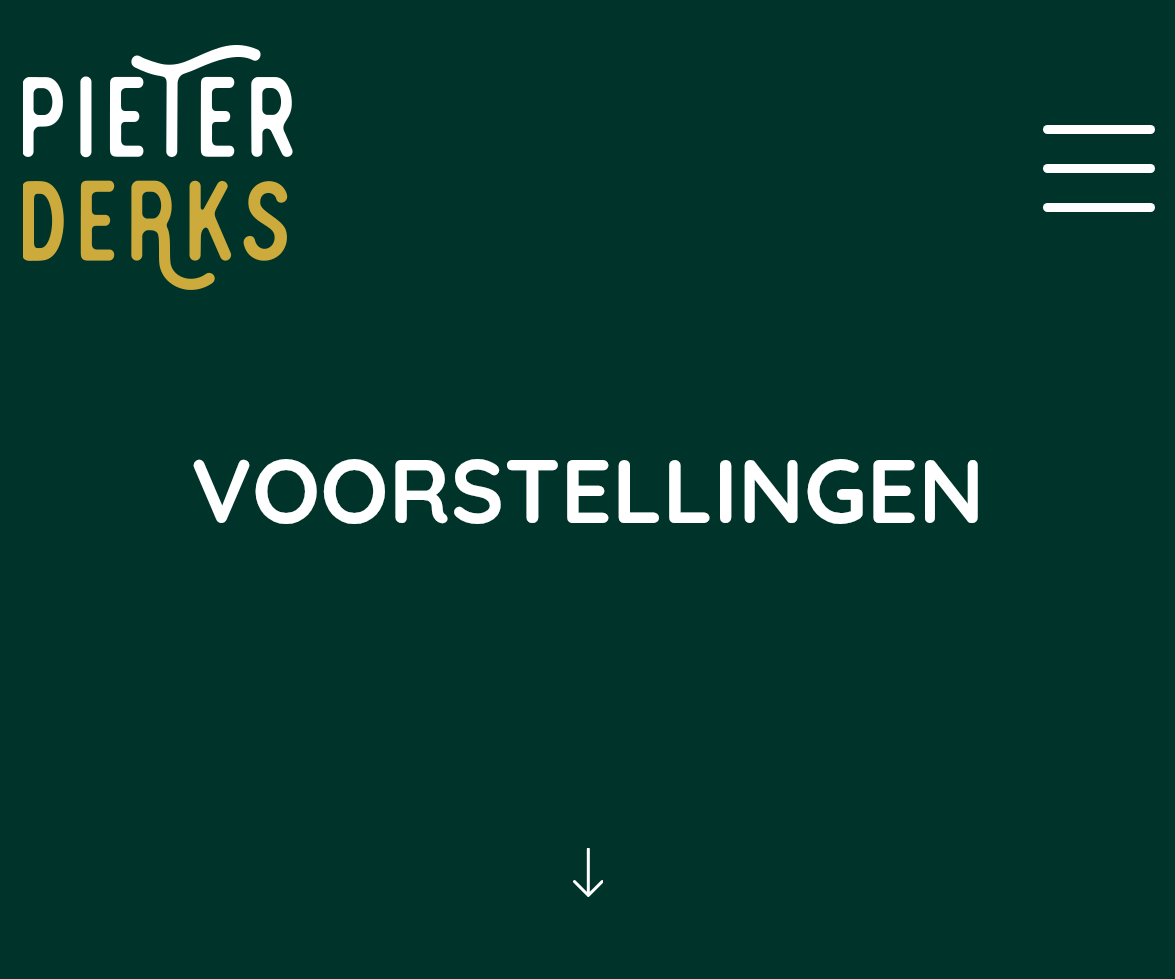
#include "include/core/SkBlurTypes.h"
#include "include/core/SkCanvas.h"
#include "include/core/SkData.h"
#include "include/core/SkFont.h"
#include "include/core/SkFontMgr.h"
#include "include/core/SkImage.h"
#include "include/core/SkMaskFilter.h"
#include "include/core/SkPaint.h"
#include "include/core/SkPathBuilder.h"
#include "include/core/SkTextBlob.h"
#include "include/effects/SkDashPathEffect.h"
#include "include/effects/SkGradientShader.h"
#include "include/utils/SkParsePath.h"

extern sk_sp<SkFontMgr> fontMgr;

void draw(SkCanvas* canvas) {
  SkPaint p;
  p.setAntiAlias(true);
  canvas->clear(SkColorSetRGB(0, 51, 41));
  canvas->drawImageRect(SkImages::DeferredFromEncodedData(SkData::MakeFromFileName("images/1.png")), SkRect::MakeLTRB(23, 45, 293, 290), SkSamplingOptions());
  p.setColor(SK_ColorWHITE);
  canvas->drawRoundRect(SkRect::MakeLTRB(1043, 164, 1155, 173), 4.5f, 4.5f, p);
  canvas->drawRoundRect(SkRect::MakeLTRB(1043, 125, 1155, 134), 4.5f, 4.5f, p);
  canvas->drawRoundRect(SkRect::MakeLTRB(1043, 203, 1155, 212), 4.5f, 4.5f, p);
  canvas->drawImageRect(SkImages::DeferredFromEncodedData(SkData::MakeFromFileName("images/2.png")), SkRect::MakeLTRB(573, 848, 603, 897), SkSamplingOptions());
  SkFont font1(fontMgr->matchFamilyStyle("Quicksand", SkFontStyle(300, SkFontStyle::kNormal_Width, SkFontStyle::kUpright_Slant)), 90);
  font1.setSubpixel(true);
  canvas->drawString("VOORSTELLINGEN", 191, 523, font1, p);
}
